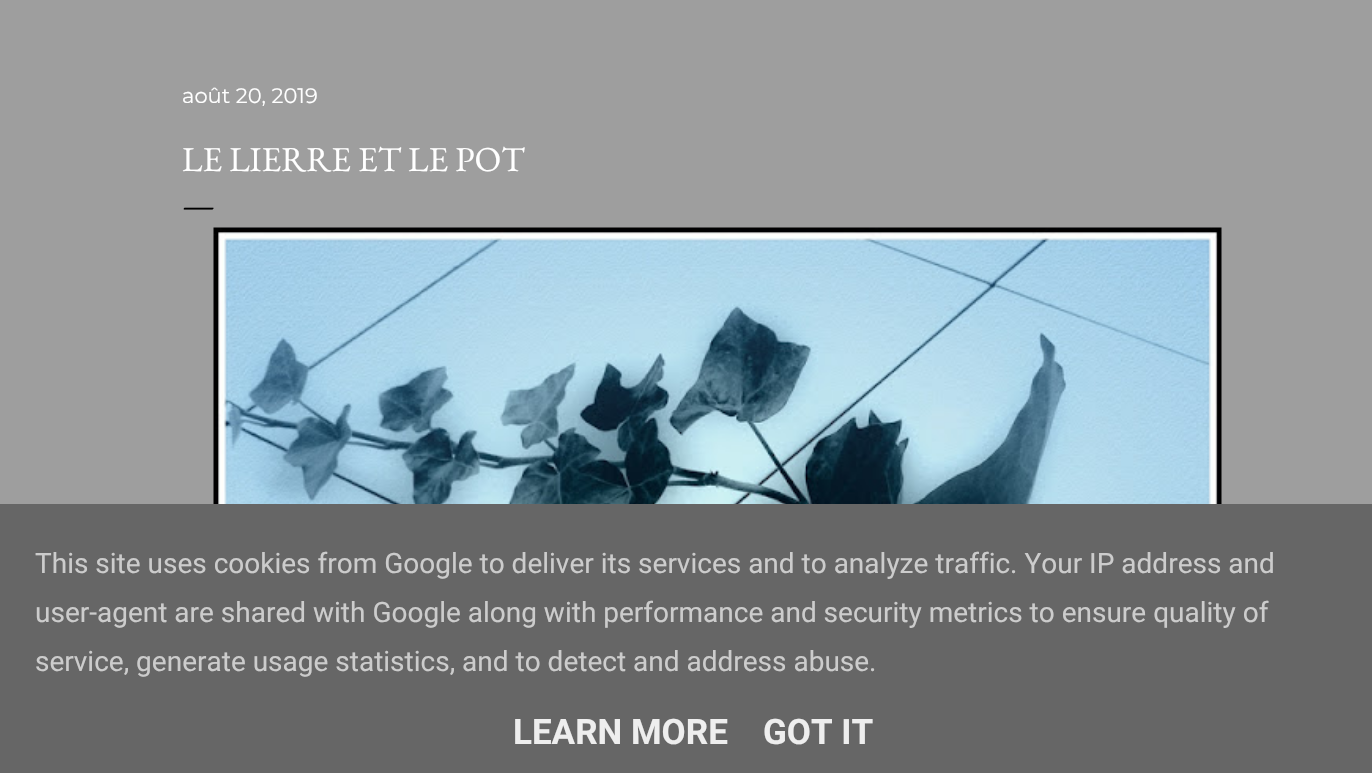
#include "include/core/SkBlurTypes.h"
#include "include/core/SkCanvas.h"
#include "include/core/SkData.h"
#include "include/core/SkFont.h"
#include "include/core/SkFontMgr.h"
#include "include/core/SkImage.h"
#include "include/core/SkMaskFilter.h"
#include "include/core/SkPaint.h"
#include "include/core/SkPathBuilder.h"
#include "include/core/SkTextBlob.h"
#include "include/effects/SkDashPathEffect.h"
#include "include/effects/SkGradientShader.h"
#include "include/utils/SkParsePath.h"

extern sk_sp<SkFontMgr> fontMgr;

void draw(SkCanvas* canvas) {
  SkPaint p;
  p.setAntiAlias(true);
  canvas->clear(SkColorSetRGB(158, 158, 158));
  canvas->drawImageRect(SkImages::DeferredFromEncodedData(SkData::MakeFromFileName("images/1.png")), SkRect::MakeLTRB(213, 227, 1222, 504), SkSamplingOptions());
  p.setColor(SkColorSetRGB(102, 102, 102));
  canvas->drawRect(SkRect::MakeLTRB(0, 504, 1372, 773), p);
  SkFont font1(fontMgr->matchFamilyStyle("Montserrat", SkFontStyle::Normal()), 21);
  font1.setSubpixel(true);
  p.setColor(SK_ColorWHITE);
  canvas->drawString("août 20, 2019", 182, 103, font1, p);
  SkFont font2(fontMgr->matchFamilyStyle("EB Garamond", SkFontStyle::Normal()), 35);
  font2.setSubpixel(true);
  canvas->drawString("LE LIERRE ET LE POT", 182, 171, font2, p);
  p.setColor(SK_ColorBLACK);
  canvas->drawString("—", 182, 216, font2, p);
  SkFont font3(fontMgr->matchFamilyStyle("Roboto", SkFontStyle::Normal()), 28);
  font3.setSubpixel(true);
  p.setColor(SkColorSetRGB(204, 204, 204));
  canvas->drawString("This site uses cookies from Google to deliver its services and to analyze traffic. Your IP address and", 35, 573, font3, p);
  canvas->drawString("user-agent are shared with Google along with performance and security metrics to ensure quality of", 35, 622, font3, p);
  canvas->drawString("service, generate usage statistics, and to detect and address abuse.", 35, 671, font3, p);
  SkFont font4(fontMgr->matchFamilyStyle("Roboto", SkFontStyle::Bold()), 35);
  font4.setSubpixel(true);
  p.setColor(SkColorSetRGB(238, 238, 238));
  canvas->drawString("LEARN MORE", 513, 744, font4, p);
  canvas->drawString("GOT IT", 763, 744, font4, p);
}
